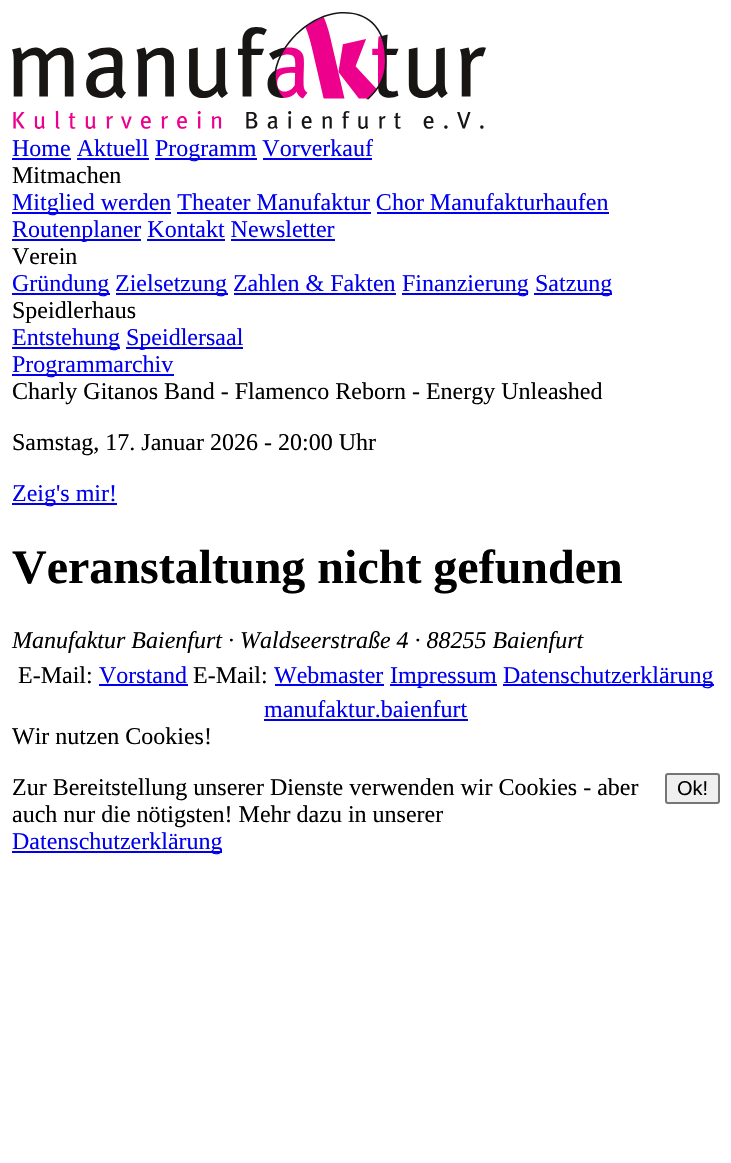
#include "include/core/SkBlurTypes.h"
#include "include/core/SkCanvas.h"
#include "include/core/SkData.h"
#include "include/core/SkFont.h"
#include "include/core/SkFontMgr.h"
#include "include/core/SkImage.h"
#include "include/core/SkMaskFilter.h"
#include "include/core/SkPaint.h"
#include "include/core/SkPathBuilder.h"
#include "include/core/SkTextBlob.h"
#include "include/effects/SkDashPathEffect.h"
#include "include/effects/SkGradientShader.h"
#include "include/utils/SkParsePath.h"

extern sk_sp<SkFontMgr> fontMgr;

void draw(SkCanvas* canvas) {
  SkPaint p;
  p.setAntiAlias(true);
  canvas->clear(SK_ColorWHITE);
  canvas->drawImageRect(SkImages::DeferredFromEncodedData(SkData::MakeFromFileName("images/1.png")), SkRect::MakeLTRB(12, 12, 486, 129), SkSamplingOptions());
  p.setColor(SkColorSetRGB(0, 0, 238));
  canvas->drawRect(SkRect::MakeLTRB(12, 158, 71, 160), p);
  canvas->drawRect(SkRect::MakeLTRB(155, 158, 257, 160), p);
  canvas->drawRect(SkRect::MakeLTRB(77, 158, 149, 160), p);
  canvas->drawRect(SkRect::MakeLTRB(263, 158, 372, 160), p);
  canvas->drawRect(SkRect::MakeLTRB(12, 212, 171, 214), p);
  canvas->drawRect(SkRect::MakeLTRB(177, 212, 371, 214), p);
  canvas->drawRect(SkRect::MakeLTRB(377, 212, 609, 214), p);
  canvas->drawRect(SkRect::MakeLTRB(12, 239, 141, 241), p);
  canvas->drawRect(SkRect::MakeLTRB(147, 239, 225, 241), p);
  canvas->drawRect(SkRect::MakeLTRB(231, 239, 335, 241), p);
  canvas->drawRect(SkRect::MakeLTRB(12, 293, 110, 295), p);
  canvas->drawRect(SkRect::MakeLTRB(116, 293, 228, 295), p);
  canvas->drawRect(SkRect::MakeLTRB(402, 293, 528, 295), p);
  canvas->drawRect(SkRect::MakeLTRB(534, 293, 612, 295), p);
  canvas->drawRect(SkRect::MakeLTRB(234, 293, 396, 295), p);
  canvas->drawRect(SkRect::MakeLTRB(12, 347, 120, 349), p);
  canvas->drawRect(SkRect::MakeLTRB(126, 347, 243, 349), p);
  canvas->drawRect(SkRect::MakeLTRB(12, 374, 174, 376), p);
  canvas->drawRect(SkRect::MakeLTRB(12, 503, 117, 505), p);
  canvas->drawRect(SkRect::MakeLTRB(99, 684, 188, 686), p);
  canvas->drawRect(SkRect::MakeLTRB(275, 684, 384, 686), p);
  canvas->drawRect(SkRect::MakeLTRB(390, 684, 497, 686), p);
  canvas->drawRect(SkRect::MakeLTRB(503, 684, 714, 686), p);
  canvas->drawRect(SkRect::MakeLTRB(264, 719, 468, 721), p);
  canvas->drawRect(SkRect::MakeLTRB(12, 851, 222, 853), p);
  p.setColor(SkColorSetRGB(239, 239, 239));
  canvas->drawRoundRect(SkRect::MakeLTRB(666, 774, 719, 803), 2, 2, p);
  p.setStyle(SkPaint::kStroke_Style);
  p.setStrokeWidth(2);
  p.setColor(SkColorSetRGB(118, 118, 118));
  canvas->drawRoundRect(SkRect::MakeLTRB(666, 774, 719, 803), 2, 2, p);
  SkFont font1(fontMgr->matchFamilyStyle("Liberation Serif", SkFontStyle::Normal()), 24);
  font1.setSubpixel(true);
  p.setStyle(SkPaint::kFill_Style);
  p.setColor(SkColorSetRGB(0, 0, 238));
  canvas->drawString("Home Aktuell", 12, 156, font1, p);
  canvas->drawString("Programm Vorverkauf", 155, 156, font1, p);
  p.setColor(SK_ColorBLACK);
  canvas->drawString("Mitmachen", 12, 183, font1, p);
  p.setColor(SkColorSetRGB(0, 0, 238));
  canvas->drawString("Mitglied werden Theater Manufaktur Chor Manufakturhaufen", 12, 210, font1, p);
  canvas->drawString("Routenplaner Kontakt Newsletter", 12, 237, font1, p);
  p.setColor(SK_ColorBLACK);
  canvas->drawString("Verein", 12, 264, font1, p);
  p.setColor(SkColorSetRGB(0, 0, 238));
  canvas->drawString("Gründung", 12, 291, font1, p);
  canvas->drawString("Zielsetzung Zahlen & Fakten", 115, 291, font1, p);
  canvas->drawString("Finanzierung", 402, 291, font1, p);
  canvas->drawString("Satzung", 535, 291, font1, p);
  p.setColor(SK_ColorBLACK);
  canvas->drawString("Speidlerhaus", 12, 318, font1, p);
  p.setColor(SkColorSetRGB(0, 0, 238));
  canvas->drawString("Entstehung", 12, 345, font1, p);
  canvas->drawString("Speidlersaal", 126, 345, font1, p);
  canvas->drawString("Programmarchiv", 12, 372, font1, p);
  p.setColor(SK_ColorBLACK);
  canvas->drawString("Charly Gitanos Band - Flamenco Reborn - Energy Unleashed", 12, 399, font1, p);
  canvas->drawString("Samstag, 17. Januar 2026 - 20:00 Uhr", 12, 450, font1, p);
  p.setColor(SkColorSetRGB(0, 0, 238));
  canvas->drawString("Zeig's mir!", 12, 501, font1, p);
  SkFont font2(fontMgr->matchFamilyStyle("Liberation Serif", SkFontStyle::Bold()), 48);
  font2.setSubpixel(true);
  p.setColor(SK_ColorBLACK);
  canvas->drawString("Veranstaltung nicht gefunden", 12, 583, font2, p);
  SkFont font3(fontMgr->matchFamilyStyle("Liberation Serif", SkFontStyle::Italic()), 24);
  font3.setSubpixel(true);
  canvas->drawString("Manufaktur Baienfurt · Waldseerstraße 4 · 88255 Baienfurt", 12, 648, font3, p);
  canvas->drawString("E-Mail:", 18, 683, font1, p);
  p.setColor(SkColorSetRGB(0, 0, 238));
  canvas->drawString("Vorstand", 99, 683, font1, p);
  p.setColor(SK_ColorBLACK);
  canvas->drawString("E-Mail:", 193, 683, font1, p);
  p.setColor(SkColorSetRGB(0, 0, 238));
  canvas->drawString("Webmaster", 274, 683, font1, p);
  canvas->drawString("Impressum", 390, 683, font1, p);
  canvas->drawString("Datenschutzerklärung", 503, 683, font1, p);
  canvas->drawString("manufaktur.baienfurt", 264, 717, font1, p);
  p.setColor(SK_ColorBLACK);
  canvas->drawString("Wir nutzen Cookies!", 12, 744, font1, p);
  canvas->drawString("Zur Bereitstellung unserer Dienste verwenden wir Cookies - aber", 12, 795, font1, p);
  canvas->drawString("auch nur die nötigsten! Mehr dazu in unserer", 12, 822, font1, p);
  p.setColor(SkColorSetRGB(0, 0, 238));
  canvas->drawString("Datenschutzerklärung", 12, 849, font1, p);
  SkFont font4(fontMgr->matchFamilyStyle("Liberation Sans", SkFontStyle::Normal()), 20);
  font4.setSubpixel(true);
  p.setColor(SK_ColorBLACK);
  canvas->drawString("Ok!", 677, 795, font4, p);
}
